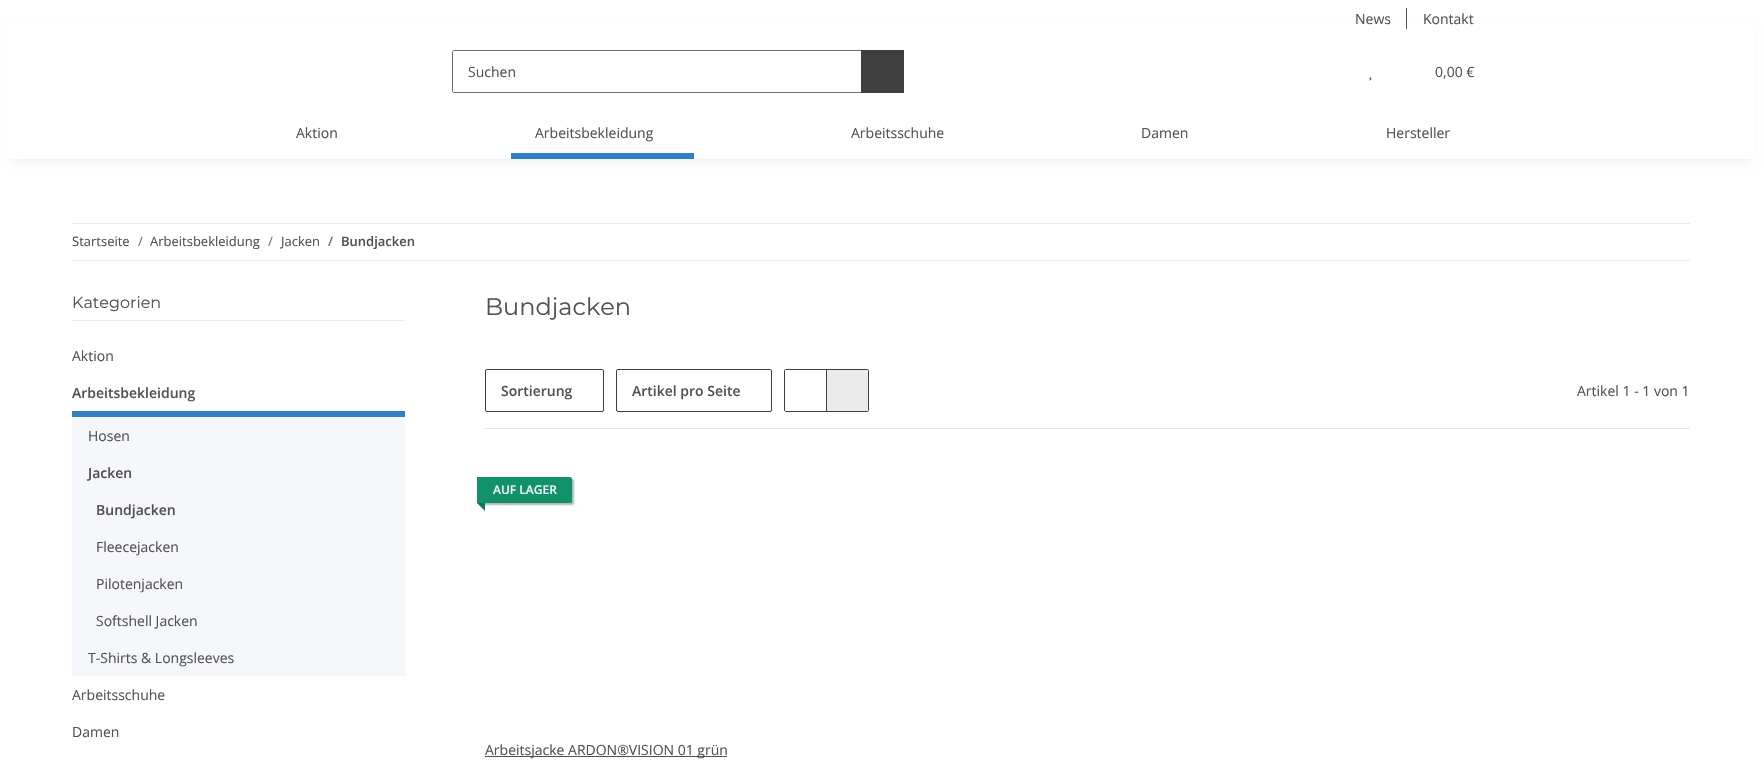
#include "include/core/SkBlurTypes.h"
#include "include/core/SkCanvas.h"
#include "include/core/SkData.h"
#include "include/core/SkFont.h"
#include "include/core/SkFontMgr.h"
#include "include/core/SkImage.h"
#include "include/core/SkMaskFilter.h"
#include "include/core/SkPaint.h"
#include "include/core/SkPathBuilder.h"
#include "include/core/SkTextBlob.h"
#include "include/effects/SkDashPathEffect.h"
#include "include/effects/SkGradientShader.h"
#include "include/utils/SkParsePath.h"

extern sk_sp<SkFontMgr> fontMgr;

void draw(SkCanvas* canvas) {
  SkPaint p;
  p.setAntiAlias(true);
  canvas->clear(SK_ColorWHITE);
  p.setColor(SkColorSetARGB(15, 0, 0, 0));
  p.setMaskFilter(SkMaskFilter::MakeBlur(kNormal_SkBlurStyle, 4.5f));
  canvas->drawRect(SkRect::MakeLTRB(12, 28, 1750, 163), p);
  p.setMaskFilter(nullptr);
  p.setColor(SK_ColorWHITE);
  canvas->drawRect(SkRect::MakeLTRB(8, 24, 1754, 159), p);
  p.setColor(SkColorSetRGB(82, 82, 82));
  canvas->drawRect(SkRect::MakeLTRB(1406, 8, 1407, 29), p);
  p.setStyle(SkPaint::kStroke_Style);
  p.setStrokeWidth(1);
  p.setColor(SkColorSetRGB(112, 112, 112));
  canvas->drawPath(SkPathBuilder().moveTo(454, 50.5f).lineTo(861.5f, 50.5f).lineTo(861.5f, 92.5f).lineTo(454, 92.5f).cubicTo(453, 92.5f, 452.5f, 92, 452.5f, 91).lineTo(452.5f, 52).cubicTo(452.5f, 51, 453, 50.5f, 454, 50.5f).close().detach(), p);
  p.setStyle(SkPaint::kFill_Style);
  p.setColor(SkColorSetRGB(63, 63, 63));
  canvas->drawRect(SkRect::MakeLTRB(861, 50, 904, 93), p);
  canvas->drawImageRect(SkImages::DeferredFromEncodedData(SkData::MakeFromFileName("images/1.png")), SkRect::MakeLTRB(1369, 77, 1372, 81), SkSamplingOptions());
  p.setColor(SkColorSetRGB(52, 127, 194));
  canvas->drawRect(SkRect::MakeLTRB(511, 153, 694, 159), p);
  p.setColor(SkColorSetRGB(235, 235, 235));
  canvas->drawRect(SkRect::MakeLTRB(72, 223, 1690, 224), p);
  canvas->drawRect(SkRect::MakeLTRB(72, 260, 1690, 261), p);
  canvas->drawRect(SkRect::MakeLTRB(72, 320, 405, 321), p);
  p.setColor(SkColorSetRGB(52, 127, 194));
  canvas->drawRect(SkRect::MakeLTRB(72, 411, 405, 417), p);
  p.setColor(SkColorSetRGB(245, 247, 250));
  canvas->drawRect(SkRect::MakeLTRB(72, 417, 405, 676), p);
  p.setStyle(SkPaint::kStroke_Style);
  p.setColor(SkColorSetRGB(63, 63, 63));
  canvas->drawRoundRect(SkRect::MakeLTRB(485.5f, 369.5f, 603.5f, 411.5f), 1.5f, 1.5f, p);
  canvas->drawRoundRect(SkRect::MakeLTRB(616.5f, 369.5f, 771.5f, 411.5f), 1.5f, 1.5f, p);
  canvas->drawPath(SkPathBuilder().moveTo(786, 369.5f).lineTo(826.5f, 369.5f).lineTo(826.5f, 411.5f).lineTo(786, 411.5f).cubicTo(785, 411.5f, 784.5f, 411, 784.5f, 410).lineTo(784.5f, 371).cubicTo(784.5f, 370, 785, 369.5f, 786, 369.5f).close().detach(), p);
  p.setStyle(SkPaint::kFill_Style);
  p.setColor(SkColorSetRGB(235, 235, 235));
  canvas->drawPath(SkPathBuilder().moveTo(826.5f, 369.5f).lineTo(867, 369.5f).cubicTo(868, 369.5f, 868.5f, 370, 868.5f, 371).lineTo(868.5f, 410).cubicTo(868.5f, 411, 868, 411.5f, 867, 411.5f).lineTo(826.5f, 411.5f).close().detach(), p);
  p.setStyle(SkPaint::kStroke_Style);
  p.setColor(SkColorSetRGB(63, 63, 63));
  canvas->drawPath(SkPathBuilder().moveTo(826.5f, 369.5f).lineTo(867, 369.5f).cubicTo(868, 369.5f, 868.5f, 370, 868.5f, 371).lineTo(868.5f, 410).cubicTo(868.5f, 411, 868, 411.5f, 867, 411.5f).lineTo(826.5f, 411.5f).close().detach(), p);
  p.setStyle(SkPaint::kFill_Style);
  p.setColor(SkColorSetRGB(230, 230, 230));
  canvas->drawRect(SkRect::MakeLTRB(485, 428, 1690, 429), p);
  p.setColor(SkColorSetARGB(77, 0, 0, 0));
  p.setMaskFilter(SkMaskFilter::MakeBlur(kNormal_SkBlurStyle, 1));
  canvas->drawRoundRect(SkRect::MakeLTRB(479, 479, 574, 505), 2, 2, p);
  p.setMaskFilter(nullptr);
  p.setColor(SkColorSetRGB(17, 146, 107));
  canvas->drawPath(SkPathBuilder().moveTo(477, 477).lineTo(570, 477).cubicTo(571, 477, 572, 478, 572, 479).lineTo(572, 501).cubicTo(572, 502, 571, 503, 570, 503).lineTo(477, 503).close().detach(), p);
  p.setColor(SkColorSetRGB(14, 119, 87));
  canvas->drawPath(SkPathBuilder().moveTo(485, 503).lineTo(485, 511).lineTo(477, 503).close().detach(), p);
  p.setColor(SkColorSetRGB(82, 82, 82));
  canvas->drawRect(SkRect::MakeLTRB(485, 756, 727, 757), p);
  SkFont font1(fontMgr->matchFamilyStyle("Open Sans", SkFontStyle::Normal()), 14);
  font1.setSubpixel(true);
  canvas->drawString("News", 1355, 24, font1, p);
  canvas->drawString("Kontakt", 1423, 24, font1, p);
  canvas->drawString("Suchen", 468, 77, font1, p);
  canvas->drawString("0,00 €", 1435, 77, font1, p);
  canvas->drawString("Aktion", 296, 138, font1, p);
  canvas->drawString("Arbeitsbekleidung", 535, 138, font1, p);
  canvas->drawString("Arbeitsschuhe", 851, 138, font1, p);
  canvas->drawString("Damen", 1141, 138, font1, p);
  canvas->drawString("Hersteller", 1386, 138, font1, p);
  SkFont font2(fontMgr->matchFamilyStyle("Open Sans", SkFontStyle::Normal()), 13);
  font2.setSubpixel(true);
  canvas->drawString("Startseite", 72, 246, font2, p);
  p.setColor(SkColorSetRGB(112, 112, 112));
  canvas->drawString("/", 138, 246, font2, p);
  p.setColor(SkColorSetRGB(82, 82, 82));
  canvas->drawString("Arbeitsbekleidung", 150, 246, font2, p);
  p.setColor(SkColorSetRGB(112, 112, 112));
  canvas->drawString("/", 268, 246, font2, p);
  p.setColor(SkColorSetRGB(82, 82, 82));
  canvas->drawString("Jacken", 281, 246, font2, p);
  SkFont font3(fontMgr->matchFamilyStyle("Open Sans", SkFontStyle(600, SkFontStyle::kNormal_Width, SkFontStyle::kUpright_Slant)), 13);
  font3.setSubpixel(true);
  p.setColor(SkColorSetRGB(112, 112, 112));
  canvas->drawString("/", 328, 246, font3, p);
  p.setColor(SkColorSetRGB(82, 82, 82));
  canvas->drawString("Bundjacken", 341, 246, font3, p);
  SkFont font4(fontMgr->matchFamilyStyle("Montserrat", SkFontStyle::Normal()), 16);
  font4.setSubpixel(true);
  canvas->drawString("Kategorien", 72, 308, font4, p);
  canvas->drawString("Aktion", 72, 361, font1, p);
  SkFont font5(fontMgr->matchFamilyStyle("Open Sans", SkFontStyle(600, SkFontStyle::kNormal_Width, SkFontStyle::kUpright_Slant)), 14);
  font5.setSubpixel(true);
  canvas->drawString("Arbeitsbekleidung", 72, 398, font5, p);
  canvas->drawString("Hosen", 88, 441, font1, p);
  canvas->drawString("Jacken", 88, 478, font5, p);
  canvas->drawString("Bundjacken", 96, 515, font5, p);
  canvas->drawString("Fleecejacken", 96, 552, font1, p);
  canvas->drawString("Pilotenjacken", 96, 589, font1, p);
  canvas->drawString("Softshell Jacken", 96, 626, font1, p);
  canvas->drawString("T-Shirts & Longsleeves", 88, 663, font1, p);
  canvas->drawString("Arbeitsschuhe", 72, 700, font1, p);
  canvas->drawString("Damen", 72, 737, font1, p);
  SkFont font6(fontMgr->matchFamilyStyle("Montserrat", SkFontStyle::Normal()), 24);
  font6.setSubpixel(true);
  canvas->drawString("Bundjacken", 485, 315, font6, p);
  canvas->drawString("Sortierung", 501, 396, font5, p);
  canvas->drawString("Artikel pro Seite", 632, 396, font5, p);
  canvas->drawString("Artikel 1 - 1 von 1", 1577, 396, font1, p);
  SkFont font7(fontMgr->matchFamilyStyle("Open Sans", SkFontStyle(600, SkFontStyle::kNormal_Width, SkFontStyle::kUpright_Slant)), 12);
  font7.setSubpixel(true);
  p.setColor(SkColorSetRGB(245, 247, 250));
  canvas->drawString("AUF LAGER", 493, 494, font7, p);
  p.setColor(SkColorSetRGB(82, 82, 82));
  canvas->drawString("Arbeitsjacke ARDON®VISION 01 grün", 485, 755, font1, p);
}
